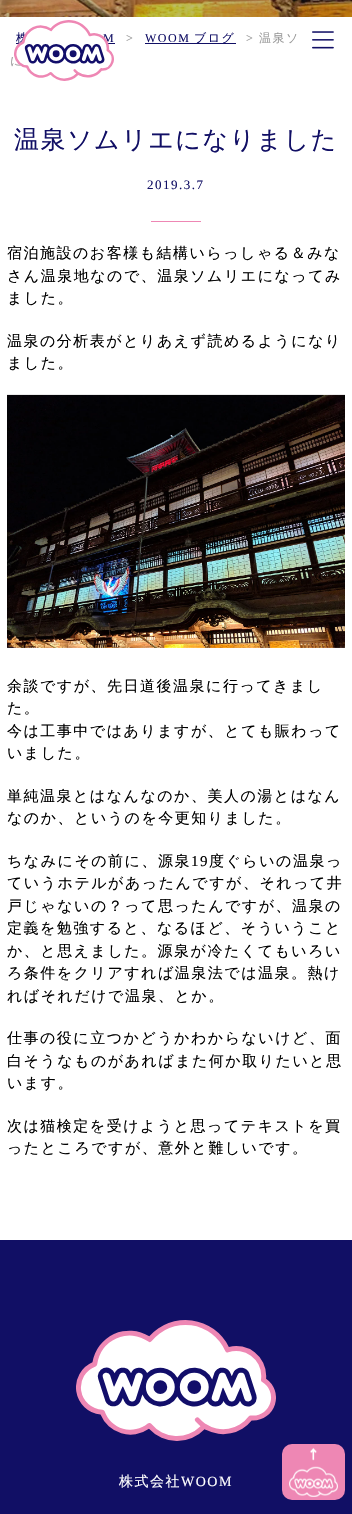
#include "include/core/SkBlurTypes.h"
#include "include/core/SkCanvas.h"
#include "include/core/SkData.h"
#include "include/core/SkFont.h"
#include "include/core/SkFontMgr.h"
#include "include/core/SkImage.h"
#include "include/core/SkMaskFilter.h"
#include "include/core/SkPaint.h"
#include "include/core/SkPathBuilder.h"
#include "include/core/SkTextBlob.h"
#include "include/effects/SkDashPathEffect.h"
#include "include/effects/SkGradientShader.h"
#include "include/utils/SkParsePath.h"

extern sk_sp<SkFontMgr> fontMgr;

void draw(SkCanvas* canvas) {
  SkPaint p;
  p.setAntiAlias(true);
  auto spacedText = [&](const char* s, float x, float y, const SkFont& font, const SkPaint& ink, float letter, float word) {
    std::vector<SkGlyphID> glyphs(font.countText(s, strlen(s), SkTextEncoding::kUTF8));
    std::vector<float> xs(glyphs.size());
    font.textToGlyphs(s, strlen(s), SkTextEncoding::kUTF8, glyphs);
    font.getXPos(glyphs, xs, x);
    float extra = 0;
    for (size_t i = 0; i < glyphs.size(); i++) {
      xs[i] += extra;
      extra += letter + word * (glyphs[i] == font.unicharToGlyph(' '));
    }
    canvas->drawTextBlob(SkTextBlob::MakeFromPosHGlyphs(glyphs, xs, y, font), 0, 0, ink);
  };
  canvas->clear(SK_ColorWHITE);
  canvas->drawImageRect(SkImages::DeferredFromEncodedData(SkData::MakeFromFileName("images/2.png")), SkRect::MakeLTRB(312, 31, 334, 49), SkSamplingOptions());
  canvas->drawImageRect(SkImages::DeferredFromEncodedData(SkData::MakeFromFileName("images/3.png")), SkRect::MakeLTRB(0, 0, 352, 17), SkSamplingOptions());
  p.setColor(SkColorSetRGB(17, 15, 101));
  canvas->drawRect(SkRect::MakeLTRB(16, 43, 115, 44), p);
  canvas->drawRect(SkRect::MakeLTRB(145, 43, 236, 44), p);
  p.setColor(SkColorSetRGB(238, 135, 180));
  canvas->drawRect(SkRect::MakeLTRB(151, 221, 201, 222), p);
  canvas->drawImageRect(SkImages::DeferredFromEncodedData(SkData::MakeFromFileName("images/4.png")), SkRect::MakeLTRB(7, 394, 345, 648), SkSamplingOptions());
  p.setColor(SkColorSetRGB(17, 15, 101));
  canvas->drawRect(SkRect::MakeLTRB(0, 1240, 352, 1514), p);
  canvas->drawImageRect(SkImages::DeferredFromEncodedData(SkData::MakeFromFileName("images/5.png")), SkRect::MakeLTRB(76, 1320, 276, 1441), SkSamplingOptions());
  p.setColor(SkColorSetRGB(238, 135, 180));
  canvas->drawRoundRect(SkRect::MakeLTRB(282, 1444, 345, 1500), 10, 10, p);
  canvas->drawImageRect(SkImages::DeferredFromEncodedData(SkData::MakeFromFileName("images/6.png")), SkRect::MakeLTRB(289, 1447, 338, 1497), SkSamplingOptions());
  SkFont font1(fontMgr->matchFamilyStyle("WenQuanYi Zen Hei", SkFontStyle(500, SkFontStyle::kNormal_Width, SkFontStyle::kUpright_Slant)), 12);
  font1.setSubpixel(true);
  p.setColor(SkColorSetRGB(17, 15, 101));
  spacedText("株", 16, 42, font1, p, 1.5f, 0);
  SkFont font2(fontMgr->matchFamilyStyle("Liberation Serif", SkFontStyle::Normal()), 12);
  font2.setSubpixel(true);
  spacedText("M", 103, 42, font2, p, 1.5f, 0);
  p.setColor(SkColorSetRGB(154, 154, 154));
  spacedText(">", 126, 42, font2, p, 1.5f, 0);
  p.setColor(SkColorSetRGB(17, 15, 101));
  spacedText("WOOM", 145, 42, font2, p, 1.5f, 0);
  spacedText("ブログ", 194, 42, font1, p, 1.5f, 0);
  p.setColor(SkColorSetRGB(154, 154, 154));
  spacedText(">", 246, 42, font2, p, 1.5f, 0);
  spacedText("温泉ソ", 259, 42, font1, p, 1.5f, 0);
  spacedText("に", 10, 65, font1, p, 1.5f, 0);
  canvas->drawImageRect(SkImages::DeferredFromEncodedData(SkData::MakeFromFileName("images/1.png")), SkRect::MakeLTRB(14, 20, 114, 81), SkSamplingOptions());
  SkFont font3(fontMgr->matchFamilyStyle("WenQuanYi Zen Hei", SkFontStyle(500, SkFontStyle::kNormal_Width, SkFontStyle::kUpright_Slant)), 25);
  font3.setSubpixel(true);
  p.setColor(SkColorSetRGB(17, 15, 101));
  spacedText("温泉ソムリエになりました", 14, 148, font3, p, 1.5f, 0);
  SkFont font4(fontMgr->matchFamilyStyle("Liberation Serif", SkFontStyle::Normal()), 13);
  font4.setSubpixel(true);
  spacedText("2019.3.7", 147, 189, font4, p, 1.5f, 0);
  SkFont font5(fontMgr->matchFamilyStyle("WenQuanYi Zen Hei", SkFontStyle(500, SkFontStyle::kNormal_Width, SkFontStyle::kUpright_Slant)), 15);
  font5.setSubpixel(true);
  p.setColor(SK_ColorBLACK);
  spacedText("宿泊施設のお客様も結構いらっしゃる＆みな", 7, 258, font5, p, 1.5f, 0);
  spacedText("さん温泉地なので、温泉ソムリエになってみ", 7, 281, font5, p, 1.5f, 0);
  spacedText("ました。", 7, 303, font5, p, 1.5f, 0);
  spacedText("温泉の分析表がとりあえず読めるようになり", 7, 346, font5, p, 1.5f, 0);
  spacedText("ました。", 7, 368, font5, p, 1.5f, 0);
  spacedText("余談ですが、先日道後温泉に行ってきまし", 7, 691, font5, p, 1.5f, 0);
  spacedText("た。", 7, 713, font5, p, 1.5f, 0);
  spacedText("今は工事中ではありますが、とても賑わって", 7, 736, font5, p, 1.5f, 0);
  spacedText("いました。", 7, 758, font5, p, 1.5f, 0);
  spacedText("単純温泉とはなんなのか、美人の湯とはなん", 7, 801, font5, p, 1.5f, 0);
  spacedText("なのか、というのを今更知りました。", 7, 823, font5, p, 1.5f, 0);
  spacedText("ちなみにその前に、源泉", 7, 866, font5, p, 1.5f, 0);
  SkFont font6(fontMgr->matchFamilyStyle("Liberation Serif", SkFontStyle::Normal()), 15);
  font6.setSubpixel(true);
  spacedText("19", 191, 866, font6, p, 1.5f, 0);
  spacedText("度ぐらいの温泉っ", 209, 866, font5, p, 1.5f, 0);
  spacedText("ていうホテルがあったんですが、それって井", 7, 888, font5, p, 1.5f, 0);
  spacedText("戸じゃないの？って思ったんですが、温泉の", 7, 911, font5, p, 1.5f, 0);
  spacedText("定義を勉強すると、なるほど、そういうこと", 7, 933, font5, p, 1.5f, 0);
  spacedText("か、と思えました。源泉が冷たくてもいろい", 7, 956, font5, p, 1.5f, 0);
  spacedText("ろ条件をクリアすれば温泉法では温泉。熱け", 7, 978, font5, p, 1.5f, 0);
  spacedText("ればそれだけで温泉、とか。", 7, 1001, font5, p, 1.5f, 0);
  spacedText("仕事の役に立つかどうかわからないけど、面", 7, 1043, font5, p, 1.5f, 0);
  spacedText("白そうなものがあればまた何か取りたいと思", 7, 1066, font5, p, 1.5f, 0);
  spacedText("います。", 7, 1088, font5, p, 1.5f, 0);
  spacedText("次は猫検定を受けようと思ってテキストを買", 7, 1131, font5, p, 1.5f, 0);
  spacedText("ったところですが、意外と難しいです。", 7, 1153, font5, p, 1.5f, 0);
  SkFont font7(fontMgr->matchFamilyStyle("WenQuanYi Zen Hei", SkFontStyle(500, SkFontStyle::kNormal_Width, SkFontStyle::kUpright_Slant)), 14);
  font7.setSubpixel(true);
  p.setColor(SK_ColorWHITE);
  spacedText("株式会社", 119, 1486, font7, p, 1.5f, 0);
  SkFont font8(fontMgr->matchFamilyStyle("Liberation Serif", SkFontStyle::Normal()), 14);
  font8.setSubpixel(true);
  spacedText("WOOM", 181, 1486, font8, p, 1.5f, 0);
}
